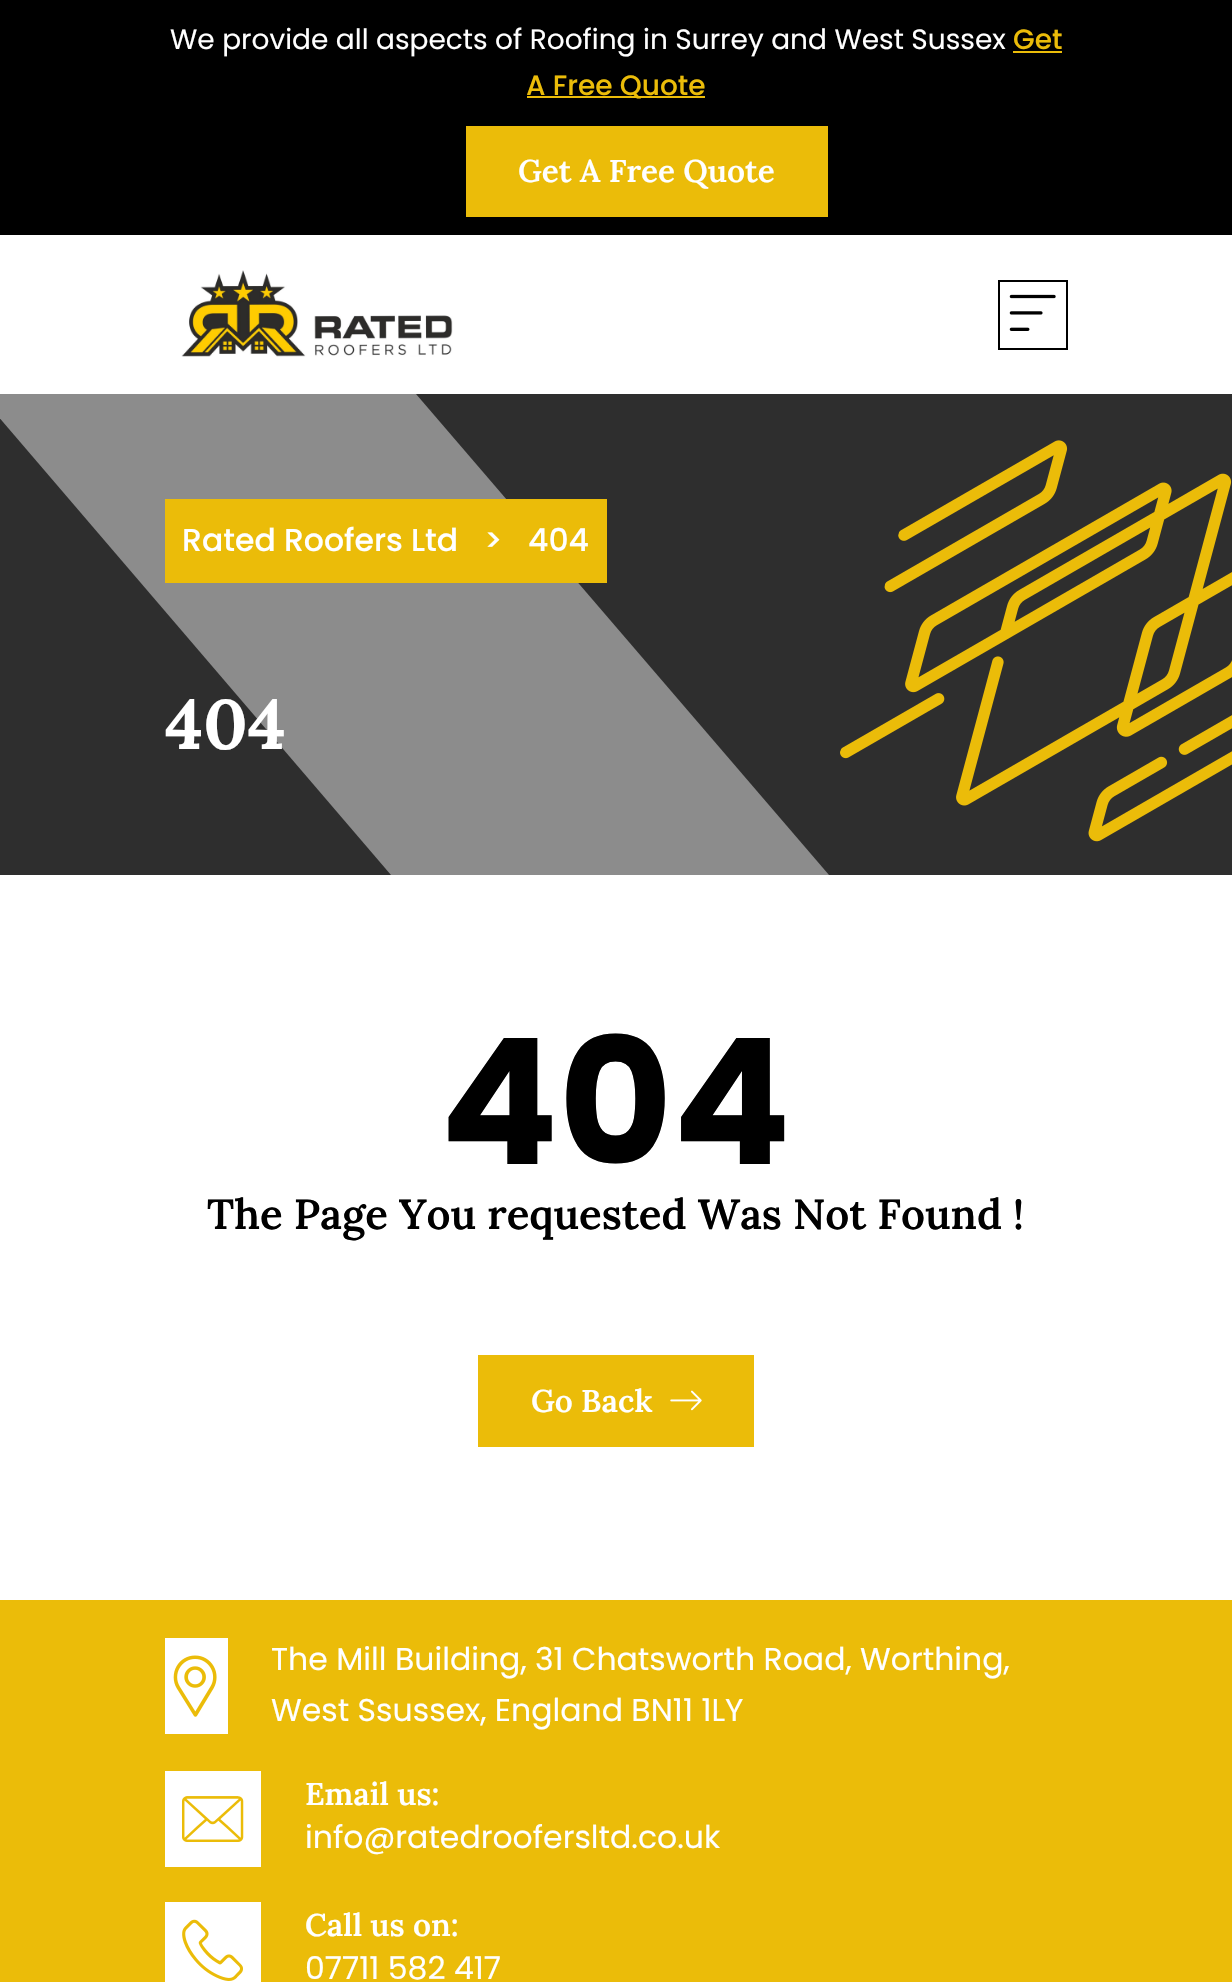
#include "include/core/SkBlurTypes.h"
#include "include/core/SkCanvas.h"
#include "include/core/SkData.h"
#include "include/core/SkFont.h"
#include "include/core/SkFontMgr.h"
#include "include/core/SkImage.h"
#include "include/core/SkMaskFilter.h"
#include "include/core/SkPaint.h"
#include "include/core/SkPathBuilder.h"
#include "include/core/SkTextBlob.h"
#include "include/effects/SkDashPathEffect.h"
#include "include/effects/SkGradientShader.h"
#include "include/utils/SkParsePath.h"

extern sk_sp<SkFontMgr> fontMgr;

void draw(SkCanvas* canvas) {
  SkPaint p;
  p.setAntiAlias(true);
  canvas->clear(SK_ColorWHITE);
  p.setColor(SK_ColorBLACK);
  canvas->drawRect(SkRect::MakeLTRB(0, 0, 1232, 235), p);
  p.setColor(SkColorSetRGB(235, 188, 9));
  canvas->drawRect(SkRect::MakeLTRB(1013, 51, 1062, 53), p);
  canvas->drawRect(SkRect::MakeLTRB(527, 96, 705, 98), p);
  canvas->drawRect(SkRect::MakeLTRB(466, 126, 828, 217), p);
  canvas->drawImageRect(SkImages::DeferredFromEncodedData(SkData::MakeFromFileName("images/1.png")), SkRect::MakeLTRB(181, 270, 453, 357), SkSamplingOptions());
  p.setStyle(SkPaint::kStroke_Style);
  p.setStrokeWidth(2);
  p.setColor(SK_ColorBLACK);
  canvas->drawRect(SkRect::MakeLTRB(999, 281, 1067, 349), p);
  canvas->drawImageRect(SkImages::DeferredFromEncodedData(SkData::MakeFromFileName("images/2.png")), SkRect::MakeLTRB(1009, 294, 1056, 331), SkSamplingOptions());
  p.setStyle(SkPaint::kFill_Style);
  p.setColor(SkColorSetRGB(46, 46, 46));
  canvas->drawRect(SkRect::MakeLTRB(0, 394, 1232, 875), p);
  p.setColor(SkColorSetRGB(140, 140, 140));
  canvas->drawPath(SkPathBuilder().moveTo(-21, 394).lineTo(416, 394).lineTo(829, 875).lineTo(391, 875).close().detach(), p);
  canvas->drawImageRect(SkImages::DeferredFromEncodedData(SkData::MakeFromFileName("images/3.png")), SkRect::MakeLTRB(840, 440, 1232, 842), SkSamplingOptions());
  p.setColor(SkColorSetRGB(235, 188, 9));
  canvas->drawRect(SkRect::MakeLTRB(165, 499, 607, 583), p);
  canvas->drawRect(SkRect::MakeLTRB(478, 1355, 754, 1447), p);
  canvas->drawImageRect(SkImages::DeferredFromEncodedData(SkData::MakeFromFileName("images/4.png")), SkRect::MakeLTRB(670, 1390, 702, 1411), SkSamplingOptions());
  canvas->drawRect(SkRect::MakeLTRB(0, 1600, 1232, 1982), p);
  p.setColor(SK_ColorWHITE);
  canvas->drawRect(SkRect::MakeLTRB(165, 1638, 228, 1734), p);
  canvas->drawImageRect(SkImages::DeferredFromEncodedData(SkData::MakeFromFileName("images/5.png")), SkRect::MakeLTRB(173, 1655, 217, 1717), SkSamplingOptions());
  canvas->drawRect(SkRect::MakeLTRB(165, 1771, 261, 1867), p);
  canvas->drawImageRect(SkImages::DeferredFromEncodedData(SkData::MakeFromFileName("images/6.png")), SkRect::MakeLTRB(182, 1796, 244, 1842), SkSamplingOptions());
  canvas->drawRect(SkRect::MakeLTRB(165, 1902, 261, 1982), p);
  canvas->drawImageRect(SkImages::DeferredFromEncodedData(SkData::MakeFromFileName("images/7.png")), SkRect::MakeLTRB(182, 1919, 243, 1981), SkSamplingOptions());
  SkFont font1(fontMgr->matchFamilyStyle("Poppins", SkFontStyle::Normal()), 28);
  font1.setSubpixel(true);
  canvas->drawString("We provide all aspects of Roofing in Surrey and West Sussex", 170, 49, font1, p);
  SkFont font2(fontMgr->matchFamilyStyle("Poppins", SkFontStyle(500, SkFontStyle::kNormal_Width, SkFontStyle::kUpright_Slant)), 28);
  font2.setSubpixel(true);
  p.setColor(SkColorSetRGB(235, 188, 9));
  canvas->drawString("Get", 1013, 49, font2, p);
  canvas->drawString("A Free Quote", 526, 95, font2, p);
  SkFont font3(fontMgr->matchFamilyStyle("Lora", SkFontStyle(600, SkFontStyle::kNormal_Width, SkFontStyle::kUpright_Slant)), 31.5f);
  font3.setSubpixel(true);
  p.setColor(SK_ColorWHITE);
  canvas->drawString("Get A Free Quote", 518, 182, font3, p);
  SkFont font4(fontMgr->matchFamilyStyle("Poppins", SkFontStyle(500, SkFontStyle::kNormal_Width, SkFontStyle::kUpright_Slant)), 31.5f);
  font4.setSubpixel(true);
  canvas->drawString("Rated Roofers Ltd", 182, 551, font4, p);
  canvas->drawString(">", 484, 551, font4, p);
  canvas->drawString("404", 528, 551, font4, p);
  SkFont font5(fontMgr->matchFamilyStyle("Lora", SkFontStyle::Bold()), 70);
  font5.setSubpixel(true);
  canvas->drawString("404", 165, 749, font5, p);
  SkFont font6(fontMgr->matchFamilyStyle("Poppins", SkFontStyle::Bold()), 175);
  font6.setSubpixel(true);
  p.setColor(SK_ColorBLACK);
  canvas->drawString("404", 440, 1164, font6, p);
  SkFont font7(fontMgr->matchFamilyStyle("Lora", SkFontStyle(600, SkFontStyle::kNormal_Width, SkFontStyle::kUpright_Slant)), 42);
  font7.setSubpixel(true);
  canvas->drawString("The Page You requested Was Not Found !", 207, 1229, font7, p);
  p.setColor(SK_ColorWHITE);
  canvas->drawString("Go Back", 531, 1412, font3, p);
  SkFont font8(fontMgr->matchFamilyStyle("Poppins", SkFontStyle::Normal()), 31.5f);
  font8.setSubpixel(true);
  canvas->drawString("The Mill Building, 31 Chatsworth Road, Worthing,", 271, 1670, font8, p);
  canvas->drawString("West Ssussex, England BN11 1LY", 271, 1721, font8, p);
  canvas->drawString("Email us:", 305, 1805, font3, p);
  canvas->drawString("info@ratedroofersltd.co.uk", 305, 1848, font8, p);
  canvas->drawString("Call us on:", 305, 1936, font3, p);
  canvas->drawString("07711 582 417", 305, 1979, font8, p);
}
